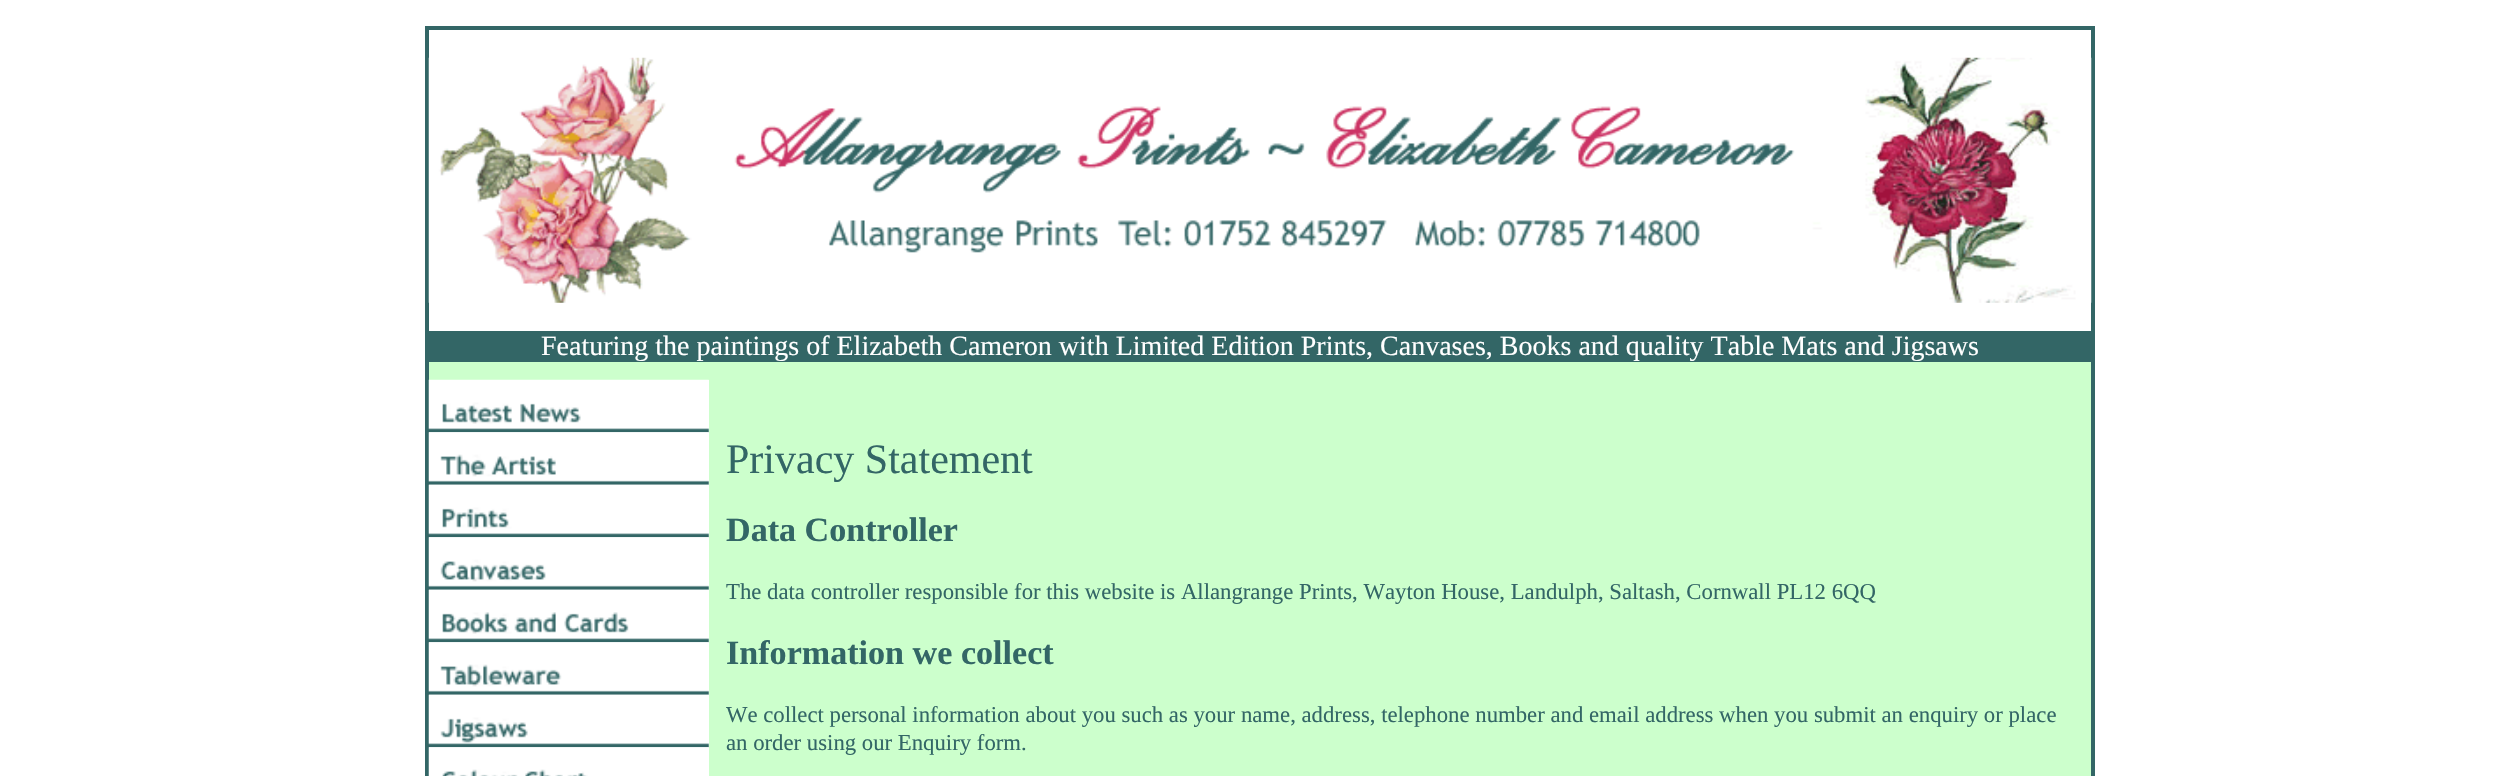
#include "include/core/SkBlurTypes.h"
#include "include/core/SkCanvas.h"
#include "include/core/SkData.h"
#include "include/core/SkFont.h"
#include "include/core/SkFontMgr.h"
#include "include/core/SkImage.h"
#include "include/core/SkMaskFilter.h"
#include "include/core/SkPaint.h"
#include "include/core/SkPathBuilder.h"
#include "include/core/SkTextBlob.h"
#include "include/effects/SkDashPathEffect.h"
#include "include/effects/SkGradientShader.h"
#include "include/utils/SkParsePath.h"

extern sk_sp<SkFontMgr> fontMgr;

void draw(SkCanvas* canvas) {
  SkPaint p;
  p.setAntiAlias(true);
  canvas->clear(SK_ColorWHITE);
  p.setStyle(SkPaint::kStroke_Style);
  p.setStrokeWidth(2);
  p.setColor(SkColorSetRGB(51, 102, 102));
  canvas->drawRect(SkRect::MakeLTRB(426, 27, 2094, 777), p);
  canvas->drawRect(SkRect::MakeLTRB(428, 29, 2092, 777), p);
  canvas->drawImageRect(SkImages::DeferredFromEncodedData(SkData::MakeFromFileName("images/1.png")), SkRect::MakeLTRB(428, 57, 2092, 303), SkSamplingOptions());
  p.setStyle(SkPaint::kFill_Style);
  canvas->drawRect(SkRect::MakeLTRB(429, 331, 2091, 362), p);
  p.setColor(SkColorSetRGB(204, 255, 204));
  canvas->drawRect(SkRect::MakeLTRB(429, 362, 2091, 380), p);
  canvas->drawRect(SkRect::MakeLTRB(709, 380, 2091, 776), p);
  canvas->drawImageRect(SkImages::DeferredFromEncodedData(SkData::MakeFromFileName("images/2.png")), SkRect::MakeLTRB(428, 379, 709, 433), SkSamplingOptions());
  canvas->drawImageRect(SkImages::DeferredFromEncodedData(SkData::MakeFromFileName("images/3.png")), SkRect::MakeLTRB(428, 432, 709, 485), SkSamplingOptions());
  canvas->drawImageRect(SkImages::DeferredFromEncodedData(SkData::MakeFromFileName("images/4.png")), SkRect::MakeLTRB(428, 484, 709, 538), SkSamplingOptions());
  canvas->drawImageRect(SkImages::DeferredFromEncodedData(SkData::MakeFromFileName("images/5.png")), SkRect::MakeLTRB(428, 537, 709, 590), SkSamplingOptions());
  canvas->drawImageRect(SkImages::DeferredFromEncodedData(SkData::MakeFromFileName("images/6.png")), SkRect::MakeLTRB(428, 589, 709, 643), SkSamplingOptions());
  canvas->drawImageRect(SkImages::DeferredFromEncodedData(SkData::MakeFromFileName("images/7.png")), SkRect::MakeLTRB(428, 642, 709, 695), SkSamplingOptions());
  canvas->drawImageRect(SkImages::DeferredFromEncodedData(SkData::MakeFromFileName("images/8.png")), SkRect::MakeLTRB(428, 694, 709, 748), SkSamplingOptions());
  canvas->drawImageRect(SkImages::DeferredFromEncodedData(SkData::MakeFromFileName("images/9.png")), SkRect::MakeLTRB(428, 747, 709, 776), SkSamplingOptions());
  SkFont font1(fontMgr->matchFamilyStyle("Liberation Serif", SkFontStyle::Normal()), 28);
  font1.setSubpixel(true);
  p.setColor(SK_ColorWHITE);
  canvas->drawString("Featuring the paintings of Elizabeth Cameron with Limited Edition Prints, Canvases, Books and quality Table Mats and Jigsaws", 541, 355, font1, p);
  SkFont font2(fontMgr->matchFamilyStyle("Liberation Serif", SkFontStyle::Normal()), 42);
  font2.setSubpixel(true);
  p.setColor(SkColorSetRGB(51, 102, 102));
  canvas->drawString("Privacy Statement", 726, 473, font2, p);
  SkFont font3(fontMgr->matchFamilyStyle("Liberation Serif", SkFontStyle::Bold()), 34.1f);
  font3.setSubpixel(true);
  canvas->drawString("Data Controller", 726, 541, font3, p);
  SkFont font4(fontMgr->matchFamilyStyle("Liberation Serif", SkFontStyle::Normal()), 22.75f);
  font4.setSubpixel(true);
  canvas->drawString("The data controller responsible for this website is Allangrange Prints, Wayton House, Landulph, Saltash, Cornwall PL12 6QQ", 726, 599, font4, p);
  canvas->drawString("Information we collect", 726, 664, font3, p);
  canvas->drawString("We collect personal information about you such as your name, address, telephone number and email address when you submit an enquiry or place", 726, 722, font4, p);
  canvas->drawString("an order using our Enquiry form.", 726, 750, font4, p);
}
